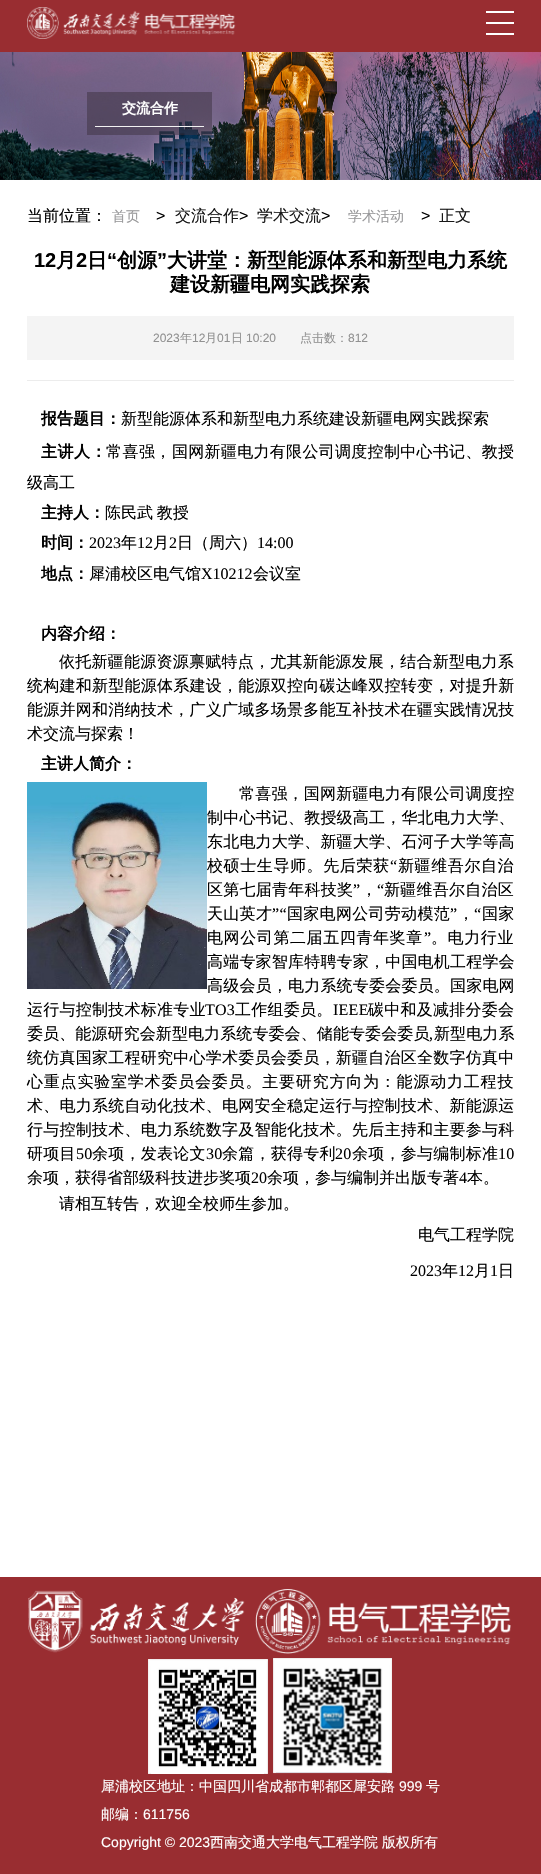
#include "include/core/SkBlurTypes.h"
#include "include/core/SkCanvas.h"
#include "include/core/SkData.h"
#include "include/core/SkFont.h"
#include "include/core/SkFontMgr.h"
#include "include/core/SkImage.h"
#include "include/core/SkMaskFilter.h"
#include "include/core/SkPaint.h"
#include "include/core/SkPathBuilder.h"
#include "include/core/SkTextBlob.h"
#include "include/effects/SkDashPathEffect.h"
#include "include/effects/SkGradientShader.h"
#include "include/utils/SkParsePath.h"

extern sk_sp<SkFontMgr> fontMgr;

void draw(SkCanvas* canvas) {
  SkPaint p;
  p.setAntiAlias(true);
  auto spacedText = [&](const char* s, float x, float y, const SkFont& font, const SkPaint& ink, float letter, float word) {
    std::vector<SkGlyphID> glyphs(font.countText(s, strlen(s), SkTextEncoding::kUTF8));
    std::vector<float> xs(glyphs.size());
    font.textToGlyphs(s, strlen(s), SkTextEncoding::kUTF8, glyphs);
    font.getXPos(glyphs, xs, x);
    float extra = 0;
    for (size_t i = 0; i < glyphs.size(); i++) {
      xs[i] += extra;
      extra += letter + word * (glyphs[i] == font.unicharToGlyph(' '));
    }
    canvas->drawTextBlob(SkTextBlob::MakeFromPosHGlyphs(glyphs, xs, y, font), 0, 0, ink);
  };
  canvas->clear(SK_ColorWHITE);
  p.setColor(SkColorSetRGB(153, 45, 49));
  canvas->drawRect(SkRect::MakeLTRB(0, 0, 541, 52), p);
  canvas->drawImageRect(SkImages::DeferredFromEncodedData(SkData::MakeFromFileName("images/1.png")), SkRect::MakeLTRB(27, 7, 236, 39), SkSamplingOptions());
  p.setColor(SK_ColorWHITE);
  canvas->drawRect(SkRect::MakeLTRB(486, 11, 514, 13), p);
  canvas->drawRect(SkRect::MakeLTRB(486, 22, 514, 24), p);
  canvas->drawRect(SkRect::MakeLTRB(486, 33, 514, 35), p);
  canvas->drawImageRect(SkImages::DeferredFromEncodedData(SkData::MakeFromFileName("images/2.png")), SkRect::MakeLTRB(0, 52, 541, 180), SkSamplingOptions());
  p.setColor(SkColorSetARGB(133, 61, 49, 66));
  canvas->drawRect(SkRect::MakeLTRB(87, 92, 212, 135), p);
  p.setColor(SkColorSetRGB(242, 242, 242));
  canvas->drawRect(SkRect::MakeLTRB(95, 126, 204, 127), p);
  p.setColor(SkColorSetRGB(244, 244, 244));
  canvas->drawRect(SkRect::MakeLTRB(27, 316, 514, 360), p);
  p.setColor(SkColorSetRGB(236, 236, 236));
  canvas->drawRect(SkRect::MakeLTRB(27, 380, 514, 381), p);
  canvas->drawImageRect(SkImages::DeferredFromEncodedData(SkData::MakeFromFileName("images/3.png")), SkRect::MakeLTRB(27, 782, 207, 989), SkSamplingOptions());
  p.setColor(SkColorSetRGB(153, 45, 49));
  canvas->drawRect(SkRect::MakeLTRB(0, 1577, 541, 1874), p);
  canvas->drawImageRect(SkImages::DeferredFromEncodedData(SkData::MakeFromFileName("images/4.png")), SkRect::MakeLTRB(28, 1589, 511, 1654), SkSamplingOptions());
  canvas->drawImageRect(SkImages::DeferredFromEncodedData(SkData::MakeFromFileName("images/5.png")), SkRect::MakeLTRB(148, 1659, 268, 1774), SkSamplingOptions());
  canvas->drawImageRect(SkImages::DeferredFromEncodedData(SkData::MakeFromFileName("images/6.png")), SkRect::MakeLTRB(273, 1658, 392, 1774), SkSamplingOptions());
  SkFont font1(fontMgr->matchFamilyStyle("WenQuanYi Zen Hei", SkFontStyle::Bold()), 14);
  font1.setSubpixel(true);
  p.setColor(SK_ColorWHITE);
  canvas->drawString("交流合作", 122, 113, font1, p);
  SkFont font2(fontMgr->matchFamilyStyle("WenQuanYi Zen Hei", SkFontStyle(500, SkFontStyle::kNormal_Width, SkFontStyle::kUpright_Slant)), 16);
  font2.setSubpixel(true);
  p.setColor(SK_ColorBLACK);
  canvas->drawString("当前位置：", 27, 221, font2, p);
  SkFont font3(fontMgr->matchFamilyStyle("WenQuanYi Zen Hei", SkFontStyle(500, SkFontStyle::kNormal_Width, SkFontStyle::kUpright_Slant)), 14);
  font3.setSubpixel(true);
  p.setColor(SkColorSetRGB(152, 152, 154));
  canvas->drawString("首页", 112, 221, font3, p);
  SkFont font4(fontMgr->matchFamilyStyle("Liberation Sans", SkFontStyle::Normal()), 16);
  font4.setSubpixel(true);
  p.setColor(SK_ColorBLACK);
  canvas->drawString(">", 156, 221, font4, p);
  p.setColor(SkColorSetRGB(23, 23, 23));
  canvas->drawString("交流合作", 175, 221, font2, p);
  p.setColor(SK_ColorBLACK);
  canvas->drawString(">", 239, 221, font4, p);
  p.setColor(SkColorSetRGB(23, 23, 23));
  canvas->drawString("学术交流", 257, 221, font2, p);
  p.setColor(SK_ColorBLACK);
  canvas->drawString(">", 321, 221, font4, p);
  p.setColor(SkColorSetRGB(152, 152, 154));
  canvas->drawString("学术活动", 348, 221, font3, p);
  p.setColor(SK_ColorBLACK);
  canvas->drawString(">", 421, 221, font4, p);
  p.setColor(SkColorSetRGB(23, 23, 23));
  canvas->drawString("正文", 439, 221, font2, p);
  SkFont font5(fontMgr->matchFamilyStyle("Liberation Sans", SkFontStyle::Bold()), 20);
  font5.setSubpixel(true);
  p.setColor(SK_ColorBLACK);
  canvas->drawString("12", 34, 267, font5, p);
  SkFont font6(fontMgr->matchFamilyStyle("WenQuanYi Zen Hei", SkFontStyle::Bold()), 20);
  font6.setSubpixel(true);
  canvas->drawString("月", 56, 267, font6, p);
  canvas->drawString("2", 76, 267, font5, p);
  canvas->drawString("日", 87, 267, font6, p);
  canvas->drawString("“", 107, 267, font5, p);
  canvas->drawString("创源", 117, 267, font6, p);
  canvas->drawString("”", 157, 267, font5, p);
  canvas->drawString("大讲堂：新型能源体系和新型电力系统", 167, 267, font6, p);
  canvas->drawString("建设新疆电网实践探索", 170, 291, font6, p);
  SkFont font7(fontMgr->matchFamilyStyle("Liberation Sans", SkFontStyle::Normal()), 12);
  font7.setSubpixel(true);
  p.setColor(SkColorSetRGB(145, 145, 145));
  canvas->drawString("2023", 153, 342, font7, p);
  SkFont font8(fontMgr->matchFamilyStyle("WenQuanYi Zen Hei", SkFontStyle(500, SkFontStyle::kNormal_Width, SkFontStyle::kUpright_Slant)), 12);
  font8.setSubpixel(true);
  canvas->drawString("年", 180, 342, font8, p);
  canvas->drawString("12", 192, 342, font7, p);
  canvas->drawString("月", 205, 342, font8, p);
  canvas->drawString("01", 217, 342, font7, p);
  canvas->drawString("日", 231, 342, font8, p);
  canvas->drawString("10:20", 246, 342, font7, p);
  canvas->drawString("点击数：", 300, 342, font8, p);
  canvas->drawString("812", 348, 342, font7, p);
  SkFont font9(fontMgr->matchFamilyStyle("WenQuanYi Zen Hei", SkFontStyle::Bold()), 16);
  font9.setSubpixel(true);
  p.setColor(SK_ColorBLACK);
  canvas->drawString("报告题目：", 41, 424, font9, p);
  canvas->drawString("新型能源体系和新型电力系统建设新疆电网实践探索", 121, 424, font2, p);
  spacedText("主讲人：", 41, 457, font9, p, 0.5f, 0);
  spacedText("常喜强", 106, 457, font2, p, 0.5f, 0);
  canvas->drawString("，", 155, 457, font2, p);
  spacedText("国网新疆电力有限公司调度控制中心书记、教授", 172, 457, font2, p, 0.3f, 0);
  canvas->drawString("级高工", 27, 488, font2, p);
  canvas->drawString("主持人：", 41, 518, font9, p);
  spacedText("陈民武 教授", 105, 518, font2, p, 0, -1);
  canvas->drawString("时间：", 41, 548, font9, p);
  SkFont font10(fontMgr->matchFamilyStyle("Liberation Serif", SkFontStyle::Normal()), 16);
  font10.setSubpixel(true);
  canvas->drawString("2023", 89, 548, font10, p);
  canvas->drawString("年", 121, 548, font2, p);
  canvas->drawString("12", 137, 548, font10, p);
  canvas->drawString("月", 153, 548, font2, p);
  canvas->drawString("2", 169, 548, font10, p);
  canvas->drawString("日（周六）", 177, 548, font2, p);
  canvas->drawString("14:00", 257, 548, font10, p);
  canvas->drawString("地点：", 41, 579, font9, p);
  canvas->drawString("犀浦校区电气馆", 89, 579, font2, p);
  canvas->drawString("X10212", 201, 579, font10, p);
  canvas->drawString("会议室", 253, 579, font2, p);
  canvas->drawString("内容介绍：", 41, 639, font9, p);
  spacedText("依托新疆能源资源禀赋特点，尤其新能源发展，结合新型电力系", 59, 667, font2, p, 0.25f, 0);
  spacedText("统构建和新型能源体系建设，能源双控向碳达峰双控转变，对提升新", 27, 691, font2, p, 0.25f, 0);
  spacedText("能源并网和消纳技术，广义广域多场景多能互补技术在疆实践情况技", 27, 715, font2, p, 0.25f, 0);
  canvas->drawString("术交流与探索！", 27, 739, font2, p);
  canvas->drawString("主讲人简介：", 41, 769, font9, p);
  spacedText("常喜强，国网新疆电力有限公司调度控", 239, 799, font2, p, 0.2f, 0);
  spacedText("制中心书记、教授级高工，华北电力大学、", 207, 823, font2, p, 0.2f, 0);
  spacedText("东北电力大学、新疆大学、石河子大学等高", 207, 847, font2, p, 0.2f, 0);
  spacedText("校硕士生导师。先后荣获", 207, 871, font2, p, 0.6f, 0);
  spacedText("“", 390, 871, font10, p, 0.6f, 0);
  spacedText("新疆维吾尔自治", 398, 871, font2, p, 0.6f, 0);
  spacedText("区第七届青年科技奖", 207, 895, font2, p, 0.25f, 0);
  spacedText("”", 353, 895, font10, p, 0.25f, 0);
  spacedText("“", 377, 895, font10, p, 0.25f, 0);
  spacedText("新疆维吾尔自治区", 384, 895, font2, p, 0.25f, 0);
  spacedText("，", 361, 895, font2, p, 0.25f, 0);
  spacedText("天山英才", 207, 919, font2, p, 0.3f, 0);
  spacedText("”“", 272, 919, font10, p, 0.3f, 0);
  spacedText("国家电网公司劳动模范", 287, 919, font2, p, 0.3f, 0);
  spacedText("”", 450, 919, font10, p, 0.3f, 0);
  spacedText("“", 474, 919, font10, p, 0.3f, 0);
  spacedText("国家", 482, 919, font2, p, 0.3f, 0);
  spacedText("，", 458, 919, font2, p, 0.3f, 0);
  spacedText("电网公司第二届五四青年奖章", 207, 943, font2, p, 0.6f, 0);
  spacedText("”", 424, 943, font10, p, 0.6f, 0);
  spacedText("。电力行业", 431, 943, font2, p, 0.6f, 0);
  spacedText("高端专家智库特聘专家，中国电机工程学会", 207, 967, font2, p, 0.2f, 0);
  spacedText("高级会员，电力系统专委会委员。国家电网", 207, 991, font2, p, 0.2f, 0);
  spacedText("运行与控制技术标准专业", 27, 1015, font2, p, 0.25f, 0);
  spacedText("TO3", 205, 1015, font10, p, 0.25f, 0);
  spacedText("工作组委员。", 235, 1015, font2, p, 0.25f, 0);
  spacedText("IEEE", 333, 1015, font10, p, 0.25f, 0);
  spacedText("碳中和及减排分委会", 368, 1015, font2, p, 0.25f, 0);
  spacedText("委员、能源研究会新型电力系统专委会、储能专委会委员", 27, 1039, font2, p, 0.1f, 0);
  spacedText(",", 429, 1039, font10, p, 0.1f, 0);
  spacedText("新型电力系", 434, 1039, font2, p, 0.1f, 0);
  spacedText("统仿真国家工程研究中心学术委员会委员，新疆自治区全数字仿真中", 27, 1063, font2, p, 0.25f, 0);
  spacedText("心重点实验室学术委员会委员。主要研究方向为：能源动力工程技", 27, 1087, font2, p, 0.8f, 0);
  spacedText("术、电力系统自动化技术、电网安全稳定运行与控制技术、新能源运", 27, 1111, font2, p, 0.25f, 0);
  spacedText("行与控制技术、电力系统数字及智能化技术。先后主持和主要参与科", 27, 1135, font2, p, 0.25f, 0);
  spacedText("研项目", 27, 1159, font2, p, 0.25f, 0);
  spacedText("50", 76, 1159, font10, p, 0.25f, 0);
  spacedText("余项，发表论文", 92, 1159, font2, p, 0.25f, 0);
  spacedText("30", 206, 1159, font10, p, 0.25f, 0);
  spacedText("余篇，获得专利", 222, 1159, font2, p, 0.25f, 0);
  spacedText("20", 335, 1159, font10, p, 0.25f, 0);
  spacedText("余项，参与编制标准", 352, 1159, font2, p, 0.25f, 0);
  spacedText("10", 498, 1159, font10, p, 0.25f, 0);
  canvas->drawString("余项，获得省部级科技进步奖项", 27, 1183, font2, p);
  canvas->drawString("20", 251, 1183, font10, p);
  canvas->drawString("余项，参与编制并出版专著", 267, 1183, font2, p);
  canvas->drawString("4", 459, 1183, font10, p);
  canvas->drawString("本。", 467, 1183, font2, p);
  canvas->drawString("请相互转告，欢迎全校师生参加。", 59, 1209, font2, p);
  canvas->drawString("电气工程学院", 418, 1240, font2, p);
  canvas->drawString("2023", 410, 1276, font10, p);
  canvas->drawString("年", 442, 1276, font2, p);
  canvas->drawString("12", 458, 1276, font10, p);
  canvas->drawString("月", 474, 1276, font2, p);
  canvas->drawString("1", 490, 1276, font10, p);
  canvas->drawString("日", 498, 1276, font2, p);
  p.setColor(SK_ColorWHITE);
  canvas->drawString("犀浦校区地址：中国四川省成都市郫都区犀安路", 101, 1791, font3, p);
  SkFont font11(fontMgr->matchFamilyStyle("Liberation Sans", SkFontStyle::Normal()), 14);
  font11.setSubpixel(true);
  canvas->drawString("999", 399, 1791, font11, p);
  canvas->drawString("号", 426, 1791, font3, p);
  canvas->drawString("邮编：", 101, 1819, font3, p);
  canvas->drawString("611756", 143, 1819, font11, p);
  canvas->drawString("Copyright © 2023", 101, 1847, font11, p);
  canvas->drawString("西南交通大学电气工程学院", 210, 1847, font3, p);
  canvas->drawString("版权所有", 382, 1847, font3, p);
}
